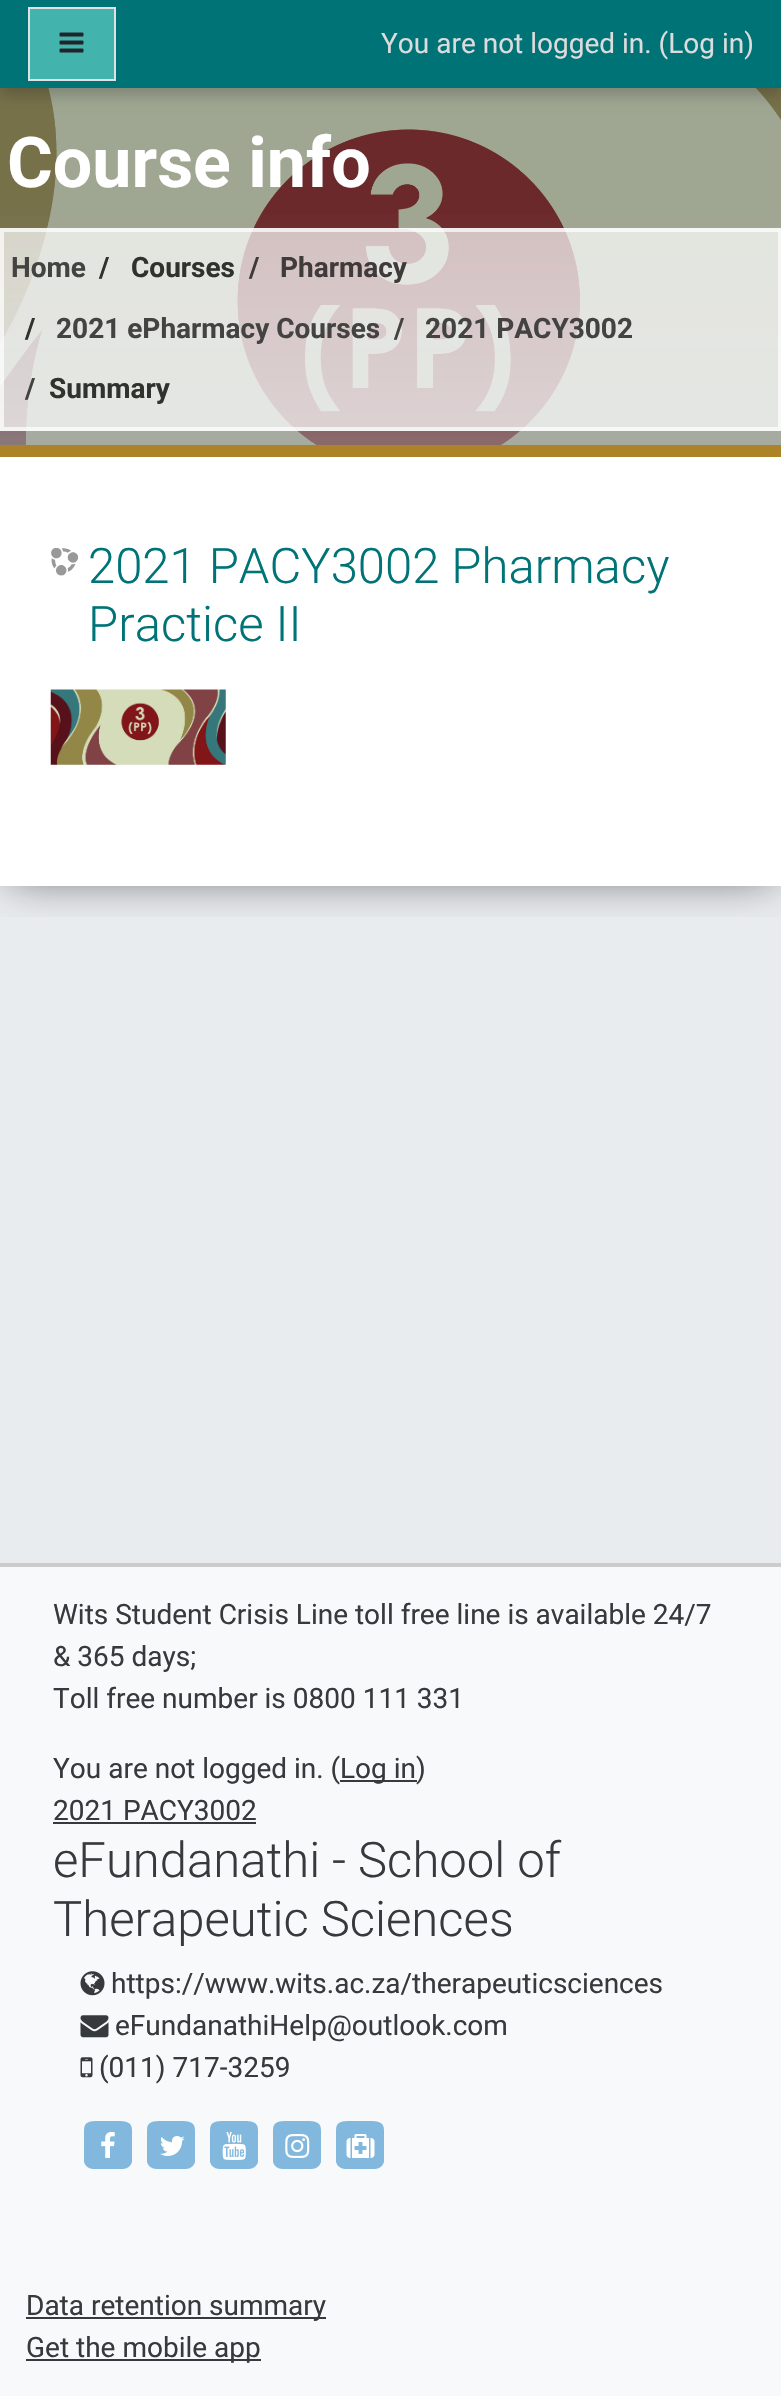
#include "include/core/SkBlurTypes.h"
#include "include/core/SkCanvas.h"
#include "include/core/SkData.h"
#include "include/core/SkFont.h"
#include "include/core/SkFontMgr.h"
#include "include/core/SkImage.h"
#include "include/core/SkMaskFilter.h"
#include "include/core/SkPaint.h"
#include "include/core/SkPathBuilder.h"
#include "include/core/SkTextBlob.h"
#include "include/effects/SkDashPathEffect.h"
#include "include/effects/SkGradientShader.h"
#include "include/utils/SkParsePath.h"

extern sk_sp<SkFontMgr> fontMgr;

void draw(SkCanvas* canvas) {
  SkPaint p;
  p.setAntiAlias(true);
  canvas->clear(SkColorSetRGB(233, 236, 239));
  canvas->drawImageRect(SkImages::DeferredFromEncodedData(SkData::MakeFromFileName("images/2.png")), SkRect::MakeLTRB(0, 88, 781, 445), SkSamplingOptions());
  canvas->save();
  canvas->clipRect(SkRect::MakeLTRB(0, 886, 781, 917));
  p.setColor(SkColorSetARGB(153, 0, 0, 0));
  p.setMaskFilter(SkMaskFilter::MakeBlur(kNormal_SkBlurStyle, 22));
  canvas->drawRect(SkRect::MakeLTRB(9, 96, 774, 877), p);
  p.setMaskFilter(nullptr);
  canvas->restore();
  p.setColor(SkColorSetARGB(77, 33, 37, 41));
  canvas->drawRect(SkRect::MakeLTRB(0, 88, 781, 445), p);
  p.setColor(SkColorSetARGB(51, 0, 0, 0));
  p.setMaskFilter(SkMaskFilter::MakeBlur(kNormal_SkBlurStyle, 7));
  canvas->drawRect(SkRect::MakeLTRB(0, 7, 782, 95), p);
  p.setMaskFilter(nullptr);
  p.setColor(SkColorSetRGB(0, 115, 119));
  canvas->drawRect(SkRect::MakeLTRB(0, 0, 781, 88), p);
  p.setColor(SkColorSetRGB(67, 179, 174));
  canvas->drawRect(SkRect::MakeLTRB(29, 8, 115, 80), p);
  p.setStyle(SkPaint::kStroke_Style);
  p.setStrokeWidth(2);
  p.setColor(SkColorSetRGB(222, 226, 230));
  canvas->drawRect(SkRect::MakeLTRB(29, 8, 115, 80), p);
  canvas->drawImageRect(SkImages::DeferredFromEncodedData(SkData::MakeFromFileName("images/1.png")), SkRect::MakeLTRB(59, 32, 84, 53), SkSamplingOptions());
  p.setStyle(SkPaint::kFill_Style);
  p.setColor(SkColorSetRGB(173, 131, 40));
  canvas->drawRect(SkRect::MakeLTRB(0, 445, 781, 457), p);
  p.setColor(SkColorSetARGB(179, 255, 255, 255));
  canvas->drawRect(SkRect::MakeLTRB(0, 228, 781, 431), p);
  p.setStyle(SkPaint::kStroke_Style);
  p.setStrokeWidth(4);
  canvas->drawRect(SkRect::MakeLTRB(2, 230, 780, 429), p);
  p.setStyle(SkPaint::kFill_Style);
  p.setColor(SK_ColorWHITE);
  canvas->drawRect(SkRect::MakeLTRB(0, 457, 781, 886), p);
  canvas->drawImageRect(SkImages::DeferredFromEncodedData(SkData::MakeFromFileName("images/3.png")), SkRect::MakeLTRB(51, 548, 79, 576), SkSamplingOptions());
  canvas->drawImageRect(SkImages::DeferredFromEncodedData(SkData::MakeFromFileName("images/4.png")), SkRect::MakeLTRB(50, 689, 226, 765), SkSamplingOptions());
  p.setColor(SkColorSetRGB(248, 249, 250));
  canvas->drawRect(SkRect::MakeLTRB(0, 1567, 781, 2396), p);
  p.setColor(SkColorSetRGB(204, 204, 204));
  canvas->drawRect(SkRect::MakeLTRB(0, 1563, 781, 1567), p);
  p.setColor(SkColorSetRGB(55, 58, 60));
  canvas->drawRect(SkRect::MakeLTRB(340, 1780, 417, 1782), p);
  canvas->drawRect(SkRect::MakeLTRB(53, 1822, 256, 1824), p);
  canvas->drawImageRect(SkImages::DeferredFromEncodedData(SkData::MakeFromFileName("images/5.png")), SkRect::MakeLTRB(80, 1971, 105, 1996), SkSamplingOptions());
  canvas->drawImageRect(SkImages::DeferredFromEncodedData(SkData::MakeFromFileName("images/6.png")), SkRect::MakeLTRB(80, 2015, 109, 2038), SkSamplingOptions());
  canvas->drawImageRect(SkImages::DeferredFromEncodedData(SkData::MakeFromFileName("images/7.png")), SkRect::MakeLTRB(80, 2057, 93, 2078), SkSamplingOptions());
  p.setColor(SkColorSetRGB(130, 184, 222));
  canvas->drawPath(SkPathBuilder().moveTo(132, 2130).lineTo(132, 2162).cubicTo(130, 2169, 124, 2169, 118, 2169).lineTo(98, 2169).cubicTo(92, 2169, 86, 2169, 84, 2162).lineTo(84, 2130).cubicTo(84, 2121, 91, 2121, 98, 2121).lineTo(118, 2121).cubicTo(124, 2121, 132, 2121, 132, 2130).close().detach(), p);
  canvas->drawImageRect(SkImages::DeferredFromEncodedData(SkData::MakeFromFileName("images/8.png")), SkRect::MakeLTRB(101, 2132, 115, 2158), SkSamplingOptions());
  canvas->drawPath(SkPathBuilder().moveTo(195, 2130).lineTo(195, 2162).cubicTo(193, 2169, 187, 2169, 181, 2169).lineTo(161, 2169).cubicTo(155, 2169, 149, 2169, 147, 2162).lineTo(147, 2130).cubicTo(147, 2121, 154, 2121, 161, 2121).lineTo(181, 2121).cubicTo(187, 2121, 195, 2121, 195, 2130).close().detach(), p);
  canvas->drawImageRect(SkImages::DeferredFromEncodedData(SkData::MakeFromFileName("images/9.png")), SkRect::MakeLTRB(160, 2136, 185, 2156), SkSamplingOptions());
  canvas->drawPath(SkPathBuilder().moveTo(258, 2130).lineTo(258, 2162).cubicTo(256, 2169, 250, 2169, 244, 2169).lineTo(224, 2169).cubicTo(218, 2169, 212, 2169, 210, 2162).lineTo(210, 2130).cubicTo(210, 2121, 217, 2121, 224, 2121).lineTo(244, 2121).cubicTo(250, 2121, 258, 2121, 258, 2130).close().detach(), p);
  canvas->drawImageRect(SkImages::DeferredFromEncodedData(SkData::MakeFromFileName("images/10.png")), SkRect::MakeLTRB(222, 2132, 246, 2160), SkSamplingOptions());
  canvas->drawPath(SkPathBuilder().moveTo(321, 2130).lineTo(321, 2162).cubicTo(319, 2169, 313, 2169, 307, 2169).lineTo(287, 2169).cubicTo(281, 2169, 275, 2169, 273, 2162).lineTo(273, 2130).cubicTo(273, 2121, 280, 2121, 287, 2121).lineTo(307, 2121).cubicTo(313, 2121, 321, 2121, 321, 2130).close().detach(), p);
  canvas->drawImageRect(SkImages::DeferredFromEncodedData(SkData::MakeFromFileName("images/11.png")), SkRect::MakeLTRB(285, 2134, 310, 2158), SkSamplingOptions());
  canvas->drawPath(SkPathBuilder().moveTo(384, 2130).lineTo(384, 2162).cubicTo(382, 2169, 376, 2169, 370, 2169).lineTo(350, 2169).cubicTo(344, 2169, 338, 2169, 336, 2162).lineTo(336, 2130).cubicTo(336, 2121, 343, 2121, 350, 2121).lineTo(370, 2121).cubicTo(376, 2121, 384, 2121, 384, 2130).close().detach(), p);
  canvas->drawImageRect(SkImages::DeferredFromEncodedData(SkData::MakeFromFileName("images/12.png")), SkRect::MakeLTRB(346, 2134, 375, 2158), SkSamplingOptions());
  p.setColor(SkColorSetRGB(55, 58, 60));
  canvas->drawRect(SkRect::MakeLTRB(26, 2317, 326, 2319), p);
  canvas->drawRect(SkRect::MakeLTRB(26, 2359, 261, 2361), p);
  SkFont font1(fontMgr->matchFamilyStyle("Roboto", SkFontStyle::Normal()), 28);
  font1.setSubpixel(true);
  p.setColor(SkColorSetRGB(220, 220, 220));
  canvas->drawString("You are not logged in. (Log in)", 381, 53, font1, p);
  SkFont font2(fontMgr->matchFamilyStyle("Roboto", SkFontStyle::Bold()), 70);
  font2.setSubpixel(true);
  p.setColor(SK_ColorWHITE);
  canvas->drawString("Course info", 7, 187, font2, p);
  SkFont font3(fontMgr->matchFamilyStyle("Roboto", SkFontStyle::Bold()), 28);
  font3.setSubpixel(true);
  p.setColor(SkColorSetRGB(67, 67, 65));
  canvas->drawString("Home", 11, 277, font3, p);
  p.setColor(SkColorSetRGB(48, 50, 45));
  canvas->drawString("/", 99, 277, font3, p);
  canvas->drawString("Courses", 131, 277, font3, p);
  p.setColor(SkColorSetRGB(64, 59, 59));
  canvas->drawString("/", 249, 277, font3, p);
  canvas->drawString("Pharmacy", 280, 277, font3, p);
  p.setColor(SkColorSetRGB(48, 50, 45));
  canvas->drawString("/", 25, 338, font3, p);
  p.setColor(SkColorSetRGB(67, 67, 65));
  canvas->drawString("2021 ePharmacy Courses", 56, 338, font3, p);
  canvas->drawString("/", 394, 338, font3, p);
  canvas->drawString("2021 PACY3002", 425, 338, font3, p);
  canvas->drawString("/", 25, 398, font3, p);
  p.setColor(SkColorSetRGB(48, 50, 45));
  canvas->drawString("Summary", 49, 398, font3, p);
  SkFont font4(fontMgr->matchFamilyStyle("Roboto", SkFontStyle(300, SkFontStyle::kNormal_Width, SkFontStyle::kUpright_Slant)), 49);
  font4.setSubpixel(true);
  p.setColor(SkColorSetRGB(0, 115, 119));
  canvas->drawString("2021 PACY3002 Pharmacy", 88, 583, font4, p);
  canvas->drawString("Practice II", 88, 641, font4, p);
  p.setColor(SkColorSetRGB(55, 58, 60));
  canvas->drawString("Wits Student Crisis Line toll free line is available 24/7", 53, 1624, font1, p);
  canvas->drawString("& 365 days;", 53, 1666, font1, p);
  canvas->drawString("Toll free number is 0800 111 331", 53, 1708, font1, p);
  canvas->drawString("You are not logged in. (", 53, 1778, font1, p);
  canvas->drawString("Log in)", 340, 1778, font1, p);
  canvas->drawString("2021 PACY3002", 53, 1820, font1, p);
  canvas->drawString("eFundanathi - School of", 53, 1877, font4, p);
  canvas->drawString("Therapeutic Sciences", 53, 1936, font4, p);
  canvas->drawString("https://www.wits.ac.za/therapeuticsciences", 111, 1993, font1, p);
  canvas->drawString("eFundanathiHelp@outlook.com", 115, 2035, font1, p);
  canvas->drawString("(011) 717-3259", 99, 2077, font1, p);
  canvas->drawString("Data retention summary", 26, 2315, font1, p);
  canvas->drawString("Get the mobile app", 26, 2357, font1, p);
}
